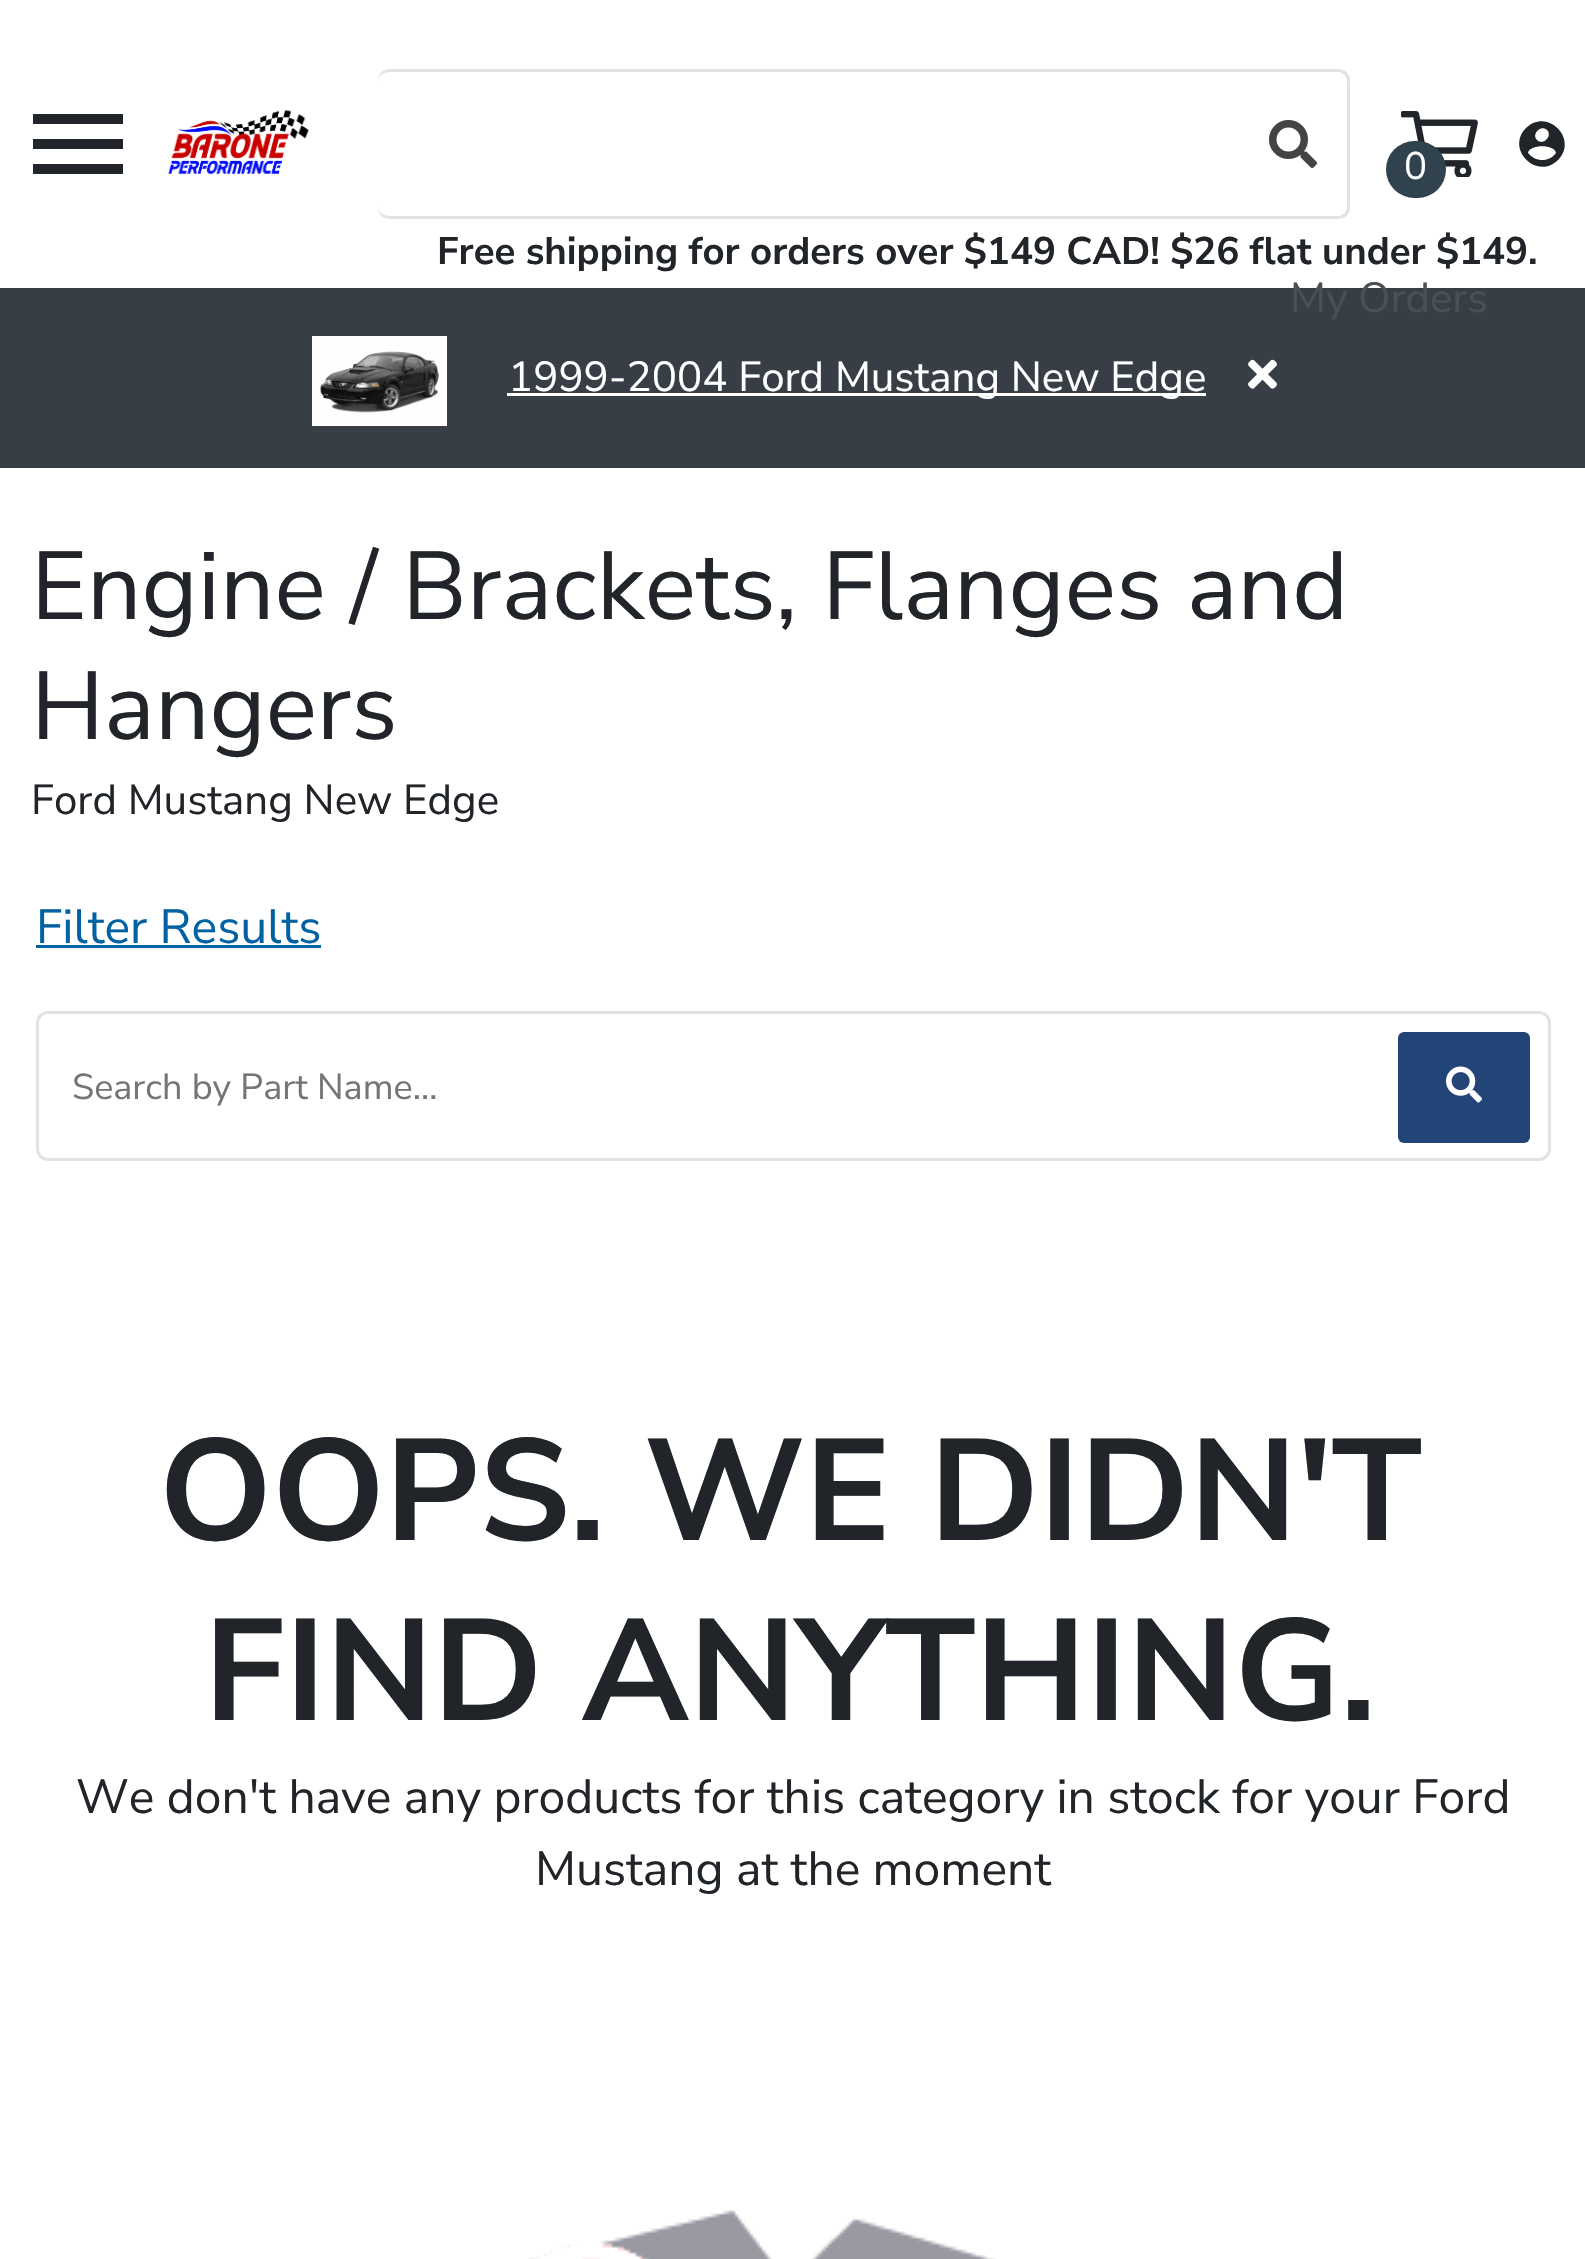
#include "include/core/SkBlurTypes.h"
#include "include/core/SkCanvas.h"
#include "include/core/SkData.h"
#include "include/core/SkFont.h"
#include "include/core/SkFontMgr.h"
#include "include/core/SkImage.h"
#include "include/core/SkMaskFilter.h"
#include "include/core/SkPaint.h"
#include "include/core/SkPathBuilder.h"
#include "include/core/SkTextBlob.h"
#include "include/effects/SkDashPathEffect.h"
#include "include/effects/SkGradientShader.h"
#include "include/utils/SkParsePath.h"

extern sk_sp<SkFontMgr> fontMgr;

void draw(SkCanvas* canvas) {
  SkPaint p;
  p.setAntiAlias(true);
  canvas->clear(SK_ColorWHITE);
  p.setColor(SkColorSetRGB(33, 37, 41));
  canvas->drawPath(SkPathBuilder().moveTo(33, 114).lineTo(123, 114).lineTo(123, 124).lineTo(33, 124).close().moveTo(33, 149).lineTo(33, 139).lineTo(123, 139).lineTo(123, 149).close().moveTo(33, 174).lineTo(33, 164).lineTo(123, 164).lineTo(123, 174).close().detach(), p);
  canvas->drawImageRect(SkImages::DeferredFromEncodedData(SkData::MakeFromFileName("images/1.png")), SkRect::MakeLTRB(168, 110, 310, 175), SkSamplingOptions());
  p.setStyle(SkPaint::kStroke_Style);
  p.setStrokeWidth(3);
  p.setColor(SkColorSetRGB(226, 226, 226));
  canvas->drawRoundRect(SkRect::MakeLTRB(379.5f, 70.5f, 1348.5f, 217.5f), 10.5f, 10.5f, p);
  p.setStyle(SkPaint::kFill_Style);
  p.setColor(SK_ColorWHITE);
  canvas->drawRoundRect(SkRect::MakeLTRB(378, 69, 1350, 219), 12, 12, p);
  p.setColor(SkColorSetRGB(226, 226, 226));
  canvas->drawPath(SkPathBuilder(SkPathFillType::kEvenOdd).moveTo(390, 69).lineTo(1338, 69).cubicTo(1345, 69, 1350, 74, 1350, 81).lineTo(1350, 207).cubicTo(1350, 214, 1345, 219, 1338, 219).lineTo(390, 219).cubicTo(383, 219, 378, 214, 378, 207).lineTo(378, 81).cubicTo(378, 74, 383, 69, 390, 69).close().moveTo(390, 72).lineTo(1338, 72).cubicTo(1343, 72, 1347, 76, 1347, 81).lineTo(1347, 207).cubicTo(1347, 212, 1343, 216, 1338, 216).lineTo(390, 216).cubicTo(383, 216, 378, 212, 378, 207).lineTo(378, 81).cubicTo(378, 76, 383, 72, 390, 72).close().detach(), p);
  canvas->drawImageRect(SkImages::DeferredFromEncodedData(SkData::MakeFromFileName("images/2.png")), SkRect::MakeLTRB(1269, 120, 1317, 168), SkSamplingOptions());
  canvas->drawImageRect(SkImages::DeferredFromEncodedData(SkData::MakeFromFileName("images/3.png")), SkRect::MakeLTRB(1401, 111, 1478, 177), SkSamplingOptions());
  p.setColor(SkColorSetRGB(48, 66, 78));
  canvas->drawRoundRect(SkRect::MakeLTRB(1386, 141, 1446, 198), 28.5f, 28.5f, p);
  p.setColor(SkColorSetRGB(33, 37, 41));
  canvas->drawPath(SkPathBuilder().moveTo(1534, 158).cubicTo(1542, 162, 1551, 160, 1556, 153).cubicTo(1555, 144, 1529, 144, 1528, 153).cubicTo(1530, 155, 1532, 157, 1534, 158).close().moveTo(1547, 130).cubicTo(1541, 124, 1531, 134, 1537, 140).cubicTo(1543, 146, 1553, 136, 1547, 130).close().moveTo(1526, 128).cubicTo(1547, 107, 1579, 139, 1558, 160).cubicTo(1537, 181, 1505, 149, 1526, 128).close().detach(), p);
  p.setColor(SkColorSetRGB(55, 62, 70));
  canvas->drawRect(SkRect::MakeLTRB(0, 288, 1585, 468), p);
  canvas->drawImageRect(SkImages::DeferredFromEncodedData(SkData::MakeFromFileName("images/4.png")), SkRect::MakeLTRB(312, 336, 447, 426), SkSamplingOptions());
  p.setColor(SK_ColorWHITE);
  canvas->drawRect(SkRect::MakeLTRB(507, 393, 1206, 396), p);
  canvas->drawImageRect(SkImages::DeferredFromEncodedData(SkData::MakeFromFileName("images/5.png")), SkRect::MakeLTRB(1248, 359, 1277, 389), SkSamplingOptions());
  p.setColor(SkColorSetRGB(0, 97, 163));
  canvas->drawRect(SkRect::MakeLTRB(36, 945, 321, 948), p);
  p.setStyle(SkPaint::kStroke_Style);
  p.setColor(SkColorSetRGB(226, 226, 226));
  canvas->drawRoundRect(SkRect::MakeLTRB(37.5f, 1012.5f, 1549.5f, 1159.5f), 10.5f, 10.5f, p);
  p.setStyle(SkPaint::kFill_Style);
  p.setColor(SkColorSetRGB(35, 68, 118));
  canvas->drawRoundRect(SkRect::MakeLTRB(1398, 1032, 1530, 1143), 6, 6, p);
  canvas->drawImageRect(SkImages::DeferredFromEncodedData(SkData::MakeFromFileName("images/6.png")), SkRect::MakeLTRB(1446, 1066, 1482, 1103), SkSamplingOptions());
  canvas->drawImageRect(SkImages::DeferredFromEncodedData(SkData::MakeFromFileName("images/7.png")), SkRect::MakeLTRB(528, 2210, 997, 2259), SkSamplingOptions());
  SkFont font1(fontMgr->matchFamilyStyle("Nunito Sans", SkFontStyle::Normal()), 38.4f);
  font1.setSubpixel(true);
  p.setColor(SK_ColorWHITE);
  canvas->drawString("0", 1404, 179, font1, p);
  SkFont font2(fontMgr->matchFamilyStyle("Nunito Sans", SkFontStyle::Bold()), 38.4f);
  font2.setSubpixel(true);
  p.setColor(SkColorSetRGB(33, 37, 41));
  canvas->drawString("Free shipping for orders over $149 CAD! $26 flat under $149.", 437, 264, font2, p);
  SkFont font3(fontMgr->matchFamilyStyle("Nunito Sans", SkFontStyle::Normal()), 42);
  font3.setSubpixel(true);
  p.setColor(SkColorSetRGB(73, 80, 87));
  canvas->drawString("My Orders", 1290, 312, font3, p);
  p.setColor(SK_ColorWHITE);
  canvas->drawString("1999-2004 Ford Mustang New Edge", 508, 391, font3, p);
  SkFont font4(fontMgr->matchFamilyStyle("Nunito Sans", SkFontStyle::Normal()), 96);
  font4.setSubpixel(true);
  p.setColor(SkColorSetRGB(33, 37, 41));
  canvas->drawString("Engine / Brackets, Flanges and", 31, 619, font4, p);
  canvas->drawString("Hangers", 31, 739, font4, p);
  canvas->drawString("Ford Mustang New Edge", 31, 814, font3, p);
  SkFont font5(fontMgr->matchFamilyStyle("Nunito Sans", SkFontStyle::Normal()), 48);
  font5.setSubpixel(true);
  p.setColor(SkColorSetRGB(0, 97, 163));
  canvas->drawString("Filter Results", 36, 943, font5, p);
  SkFont font6(fontMgr->matchFamilyStyle("Nunito Sans", SkFontStyle::Normal()), 36);
  font6.setSubpixel(true);
  p.setColor(SkColorSetRGB(117, 117, 117));
  canvas->drawString("Search by Part Name…", 72, 1099, font6, p);
  SkFont font7(fontMgr->matchFamilyStyle("Nunito Sans", SkFontStyle::Bold()), 144);
  font7.setSubpixel(true);
  p.setColor(SkColorSetRGB(33, 37, 41));
  canvas->drawString("OOPS. WE DIDN'T", 159, 1540, font7, p);
  canvas->drawString("FIND ANYTHING.", 204, 1720, font7, p);
  canvas->drawString("We don't have any products for this category in stock for your Ford", 76, 1813, font5, p);
  canvas->drawString("Mustang at the moment", 535, 1885, font5, p);
}
